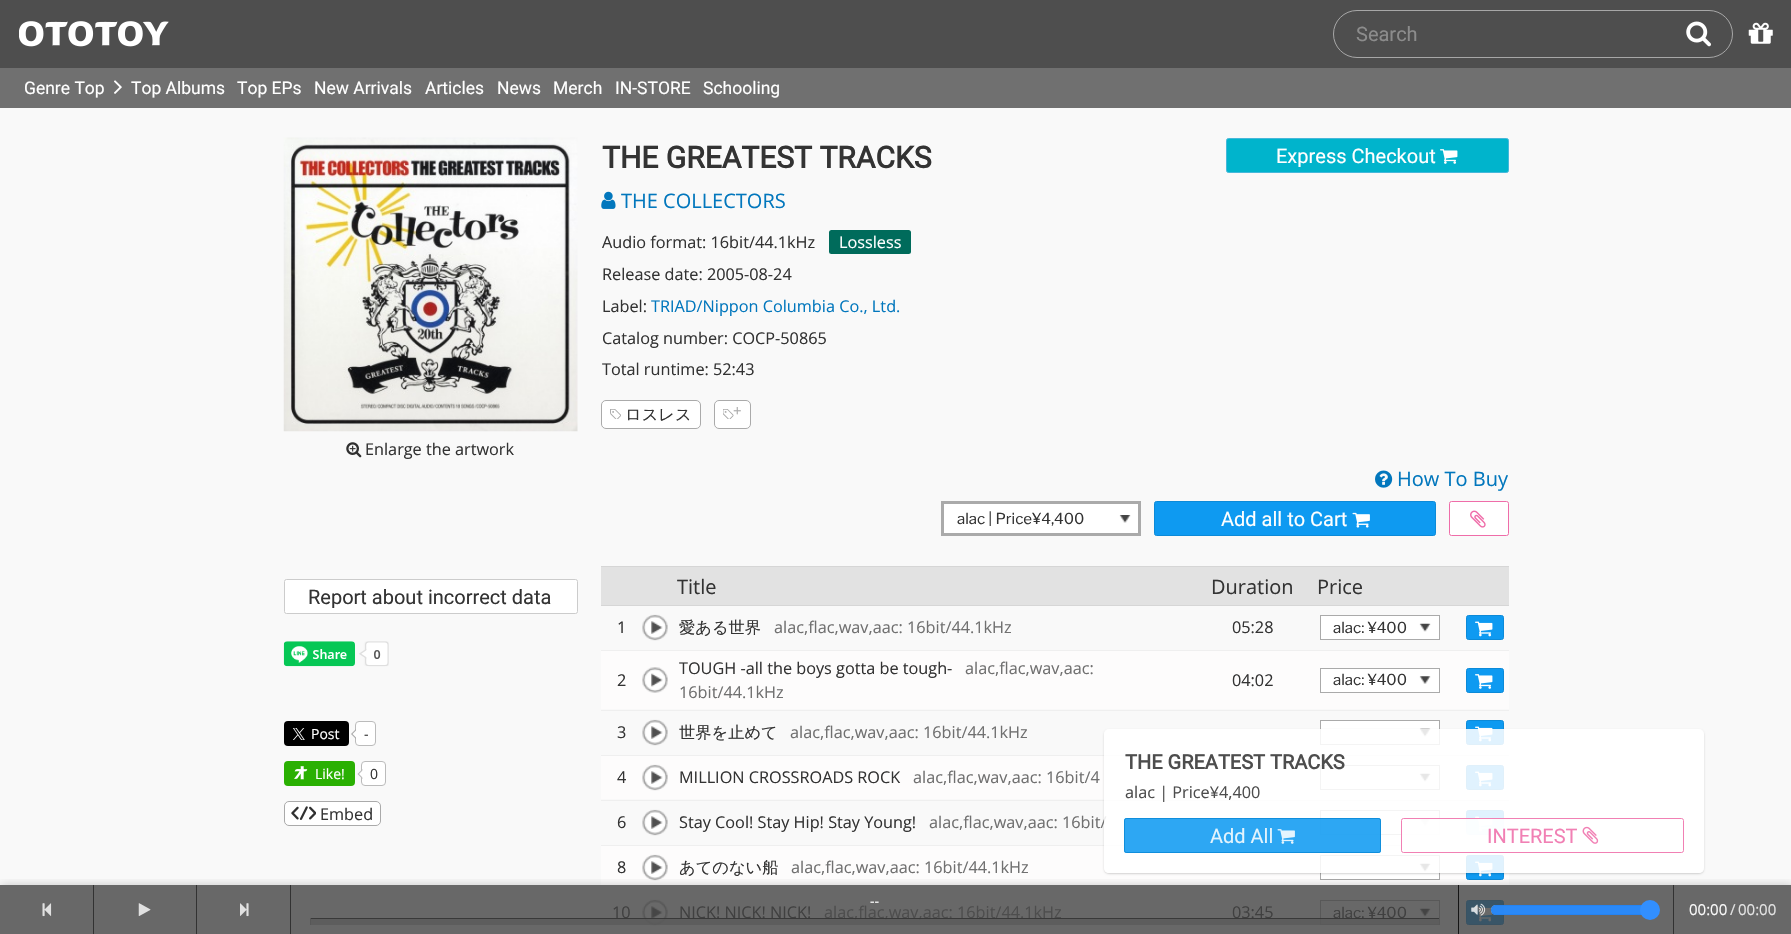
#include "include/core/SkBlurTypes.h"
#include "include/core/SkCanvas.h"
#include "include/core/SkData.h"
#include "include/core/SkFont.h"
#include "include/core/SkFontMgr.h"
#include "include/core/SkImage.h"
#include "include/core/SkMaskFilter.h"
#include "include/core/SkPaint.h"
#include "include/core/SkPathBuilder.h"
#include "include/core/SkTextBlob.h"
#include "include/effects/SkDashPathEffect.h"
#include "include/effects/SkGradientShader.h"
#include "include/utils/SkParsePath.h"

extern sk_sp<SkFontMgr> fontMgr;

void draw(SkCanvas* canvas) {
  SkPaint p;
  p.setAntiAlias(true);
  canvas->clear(SkColorSetRGB(249, 249, 249));
  p.setColor(SkColorSetRGB(104, 104, 104));
  canvas->drawRect(SkRect::MakeLTRB(0, 885, 1791, 934), p);
  p.setColor(SkColorSetRGB(21, 21, 21));
  canvas->drawRect(SkRect::MakeLTRB(1458, 885, 1459, 934), p);
  p.setColor(SkColorSetRGB(78, 78, 78));
  canvas->drawRect(SkRect::MakeLTRB(0, 0, 1791, 68), p);
  canvas->drawImageRect(SkImages::DeferredFromEncodedData(SkData::MakeFromFileName("images/1.png")), SkRect::MakeLTRB(19, 21, 169, 47), SkSamplingOptions());
  p.setStyle(SkPaint::kStroke_Style);
  p.setStrokeWidth(1);
  p.setColor(SkColorSetRGB(167, 167, 167));
  canvas->drawRoundRect(SkRect::MakeLTRB(1333.5f, 10.5f, 1732.5f, 57.5f), 23.5f, 23.5f, p);
  canvas->drawImageRect(SkImages::DeferredFromEncodedData(SkData::MakeFromFileName("images/2.png")), SkRect::MakeLTRB(1686, 21, 1711, 47), SkSamplingOptions());
  canvas->drawImageRect(SkImages::DeferredFromEncodedData(SkData::MakeFromFileName("images/3.png")), SkRect::MakeLTRB(1748, 22, 1773, 44), SkSamplingOptions());
  p.setStyle(SkPaint::kFill_Style);
  p.setColor(SkColorSetRGB(112, 112, 112));
  canvas->drawRect(SkRect::MakeLTRB(0, 68, 1791, 108), p);
  canvas->drawImageRect(SkImages::DeferredFromEncodedData(SkData::MakeFromFileName("images/4.png")), SkRect::MakeLTRB(114, 80, 122, 94), SkSamplingOptions());
  p.setColor(SkColorSetRGB(0, 180, 204));
  canvas->drawRoundRect(SkRect::MakeLTRB(1226.5f, 138.5f, 1508.5f, 172.5f), 2, 2, p);
  p.setStyle(SkPaint::kStroke_Style);
  p.setColor(SkColorSetRGB(70, 184, 218));
  canvas->drawRoundRect(SkRect::MakeLTRB(1226.5f, 138.5f, 1508.5f, 172.5f), 2, 2, p);
  canvas->drawImageRect(SkImages::DeferredFromEncodedData(SkData::MakeFromFileName("images/5.png")), SkRect::MakeLTRB(1440, 149, 1458, 164), SkSamplingOptions());
  canvas->drawImageRect(SkImages::DeferredFromEncodedData(SkData::MakeFromFileName("images/6.png")), SkRect::MakeLTRB(601, 191, 616, 209), SkSamplingOptions());
  p.setStyle(SkPaint::kFill_Style);
  p.setColor(SkColorSetRGB(0, 107, 91));
  canvas->drawRoundRect(SkRect::MakeLTRB(829, 230, 911, 254), 2.5f, 2.5f, p);
  p.setColor(SK_ColorWHITE);
  canvas->drawRoundRect(SkRect::MakeLTRB(601.5f, 400.5f, 700.5f, 428.5f), 4.5f, 4.5f, p);
  p.setStyle(SkPaint::kStroke_Style);
  p.setColor(SkColorSetRGB(170, 170, 170));
  canvas->drawRoundRect(SkRect::MakeLTRB(601.5f, 400.5f, 700.5f, 428.5f), 4.5f, 4.5f, p);
  canvas->drawImageRect(SkImages::DeferredFromEncodedData(SkData::MakeFromFileName("images/7.png")), SkRect::MakeLTRB(610, 409, 621, 419), SkSamplingOptions());
  p.setStyle(SkPaint::kFill_Style);
  p.setColor(SK_ColorWHITE);
  canvas->drawRoundRect(SkRect::MakeLTRB(714.5f, 400.5f, 750.5f, 428.5f), 4.5f, 4.5f, p);
  p.setStyle(SkPaint::kStroke_Style);
  p.setColor(SkColorSetRGB(170, 170, 170));
  canvas->drawRoundRect(SkRect::MakeLTRB(714.5f, 400.5f, 750.5f, 428.5f), 4.5f, 4.5f, p);
  canvas->drawImageRect(SkImages::DeferredFromEncodedData(SkData::MakeFromFileName("images/8.png")), SkRect::MakeLTRB(723, 409, 734, 419), SkSamplingOptions());
  canvas->drawImageRect(SkImages::DeferredFromEncodedData(SkData::MakeFromFileName("images/9.png")), SkRect::MakeLTRB(283, 137, 578, 432), SkSamplingOptions());
  canvas->drawImageRect(SkImages::DeferredFromEncodedData(SkData::MakeFromFileName("images/10.png")), SkRect::MakeLTRB(346, 442, 362, 458), SkSamplingOptions());
  canvas->drawImageRect(SkImages::DeferredFromEncodedData(SkData::MakeFromFileName("images/11.png")), SkRect::MakeLTRB(1375, 470, 1393, 488), SkSamplingOptions());
  p.setStyle(SkPaint::kFill_Style);
  p.setColor(SK_ColorWHITE);
  canvas->drawRect(SkRect::MakeLTRB(944, 504, 1138, 533), p);
  canvas->drawImageRect(SkImages::DeferredFromEncodedData(SkData::MakeFromFileName("images/12.png")), SkRect::MakeLTRB(1119, 515, 1131, 523), SkSamplingOptions());
  p.setStyle(SkPaint::kStroke_Style);
  p.setStrokeWidth(3);
  p.setColor(SkColorSetRGB(170, 170, 170));
  canvas->drawRect(SkRect::MakeLTRB(942.5f, 502.5f, 1139.5f, 534.5f), p);
  p.setStyle(SkPaint::kFill_Style);
  p.setColor(SkColorSetRGB(14, 154, 241));
  canvas->drawRoundRect(SkRect::MakeLTRB(1154.5f, 501.5f, 1435.5f, 535.5f), 2, 2, p);
  p.setStyle(SkPaint::kStroke_Style);
  p.setStrokeWidth(1);
  p.setColor(SkColorSetRGB(12, 138, 216));
  canvas->drawRoundRect(SkRect::MakeLTRB(1154.5f, 501.5f, 1435.5f, 535.5f), 2, 2, p);
  canvas->drawImageRect(SkImages::DeferredFromEncodedData(SkData::MakeFromFileName("images/13.png")), SkRect::MakeLTRB(1352, 512, 1370, 528), SkSamplingOptions());
  p.setStyle(SkPaint::kFill_Style);
  p.setColor(SK_ColorWHITE);
  canvas->drawRoundRect(SkRect::MakeLTRB(1449.5f, 501.5f, 1508.5f, 535.5f), 2, 2, p);
  p.setStyle(SkPaint::kStroke_Style);
  p.setColor(SkColorSetRGB(239, 109, 169));
  canvas->drawRoundRect(SkRect::MakeLTRB(1449.5f, 501.5f, 1508.5f, 535.5f), 2, 2, p);
  canvas->drawImageRect(SkImages::DeferredFromEncodedData(SkData::MakeFromFileName("images/14.png")), SkRect::MakeLTRB(1470, 510, 1486, 528), SkSamplingOptions());
  p.setStyle(SkPaint::kFill_Style);
  p.setColor(SK_ColorWHITE);
  canvas->drawRoundRect(SkRect::MakeLTRB(284.5f, 579.5f, 577.5f, 613.5f), 2, 2, p);
  p.setStyle(SkPaint::kStroke_Style);
  p.setColor(SkColorSetRGB(204, 204, 204));
  canvas->drawRoundRect(SkRect::MakeLTRB(284.5f, 579.5f, 577.5f, 613.5f), 2, 2, p);
  canvas->drawImageRect(SkImages::DeferredFromEncodedData(SkData::MakeFromFileName("images/15.png")), SkRect::MakeLTRB(283, 641, 389, 667), SkSamplingOptions());
  p.setStyle(SkPaint::kFill_Style);
  p.setColor(SK_ColorBLACK);
  canvas->drawRoundRect(SkRect::MakeLTRB(284, 721, 349, 746), 4, 4, p);
  canvas->drawImageRect(SkImages::DeferredFromEncodedData(SkData::MakeFromFileName("images/16.png")), SkRect::MakeLTRB(293, 728, 305, 740), SkSamplingOptions());
  p.setColor(SK_ColorWHITE);
  canvas->drawRoundRect(SkRect::MakeLTRB(355.5f, 721.5f, 375.5f, 745.5f), 3.5f, 3.5f, p);
  p.setStyle(SkPaint::kStroke_Style);
  p.setColor(SkColorSetRGB(187, 187, 187));
  canvas->drawRoundRect(SkRect::MakeLTRB(355.5f, 721.5f, 375.5f, 745.5f), 3.5f, 3.5f, p);
  p.setStyle(SkPaint::kFill_Style);
  p.setColor(SkColorSetRGB(170, 170, 170));
  canvas->drawPath(SkPathBuilder().moveTo(356, 729).lineTo(356, 739).lineTo(351, 734).close().detach(), p);
  p.setColor(SK_ColorWHITE);
  canvas->drawPath(SkPathBuilder().moveTo(357.5f, 729).lineTo(357.5f, 739).lineTo(352.5f, 734).close().detach(), p);
  p.setColor(SkColorSetRGB(42, 176, 2));
  canvas->drawRoundRect(SkRect::MakeLTRB(284, 761, 355, 786), 4, 4, p);
  canvas->drawImageRect(SkImages::DeferredFromEncodedData(SkData::MakeFromFileName("images/17.png")), SkRect::MakeLTRB(294, 766, 308, 780), SkSamplingOptions());
  p.setColor(SK_ColorWHITE);
  canvas->drawRoundRect(SkRect::MakeLTRB(361.5f, 761.5f, 385.5f, 785.5f), 3.5f, 3.5f, p);
  p.setStyle(SkPaint::kStroke_Style);
  p.setColor(SkColorSetRGB(187, 187, 187));
  canvas->drawRoundRect(SkRect::MakeLTRB(361.5f, 761.5f, 385.5f, 785.5f), 3.5f, 3.5f, p);
  p.setStyle(SkPaint::kFill_Style);
  canvas->drawPath(SkPathBuilder().moveTo(362.5f, 769).lineTo(362.5f, 779).lineTo(357.5f, 774).close().detach(), p);
  p.setColor(SK_ColorWHITE);
  canvas->drawPath(SkPathBuilder().moveTo(364, 769).lineTo(364, 779).lineTo(359, 774).close().detach(), p);
  canvas->drawRoundRect(SkRect::MakeLTRB(284.5f, 801.5f, 380.5f, 825.5f), 4.5f, 4.5f, p);
  p.setStyle(SkPaint::kStroke_Style);
  p.setColor(SkColorSetRGB(170, 170, 170));
  canvas->drawRoundRect(SkRect::MakeLTRB(284.5f, 801.5f, 380.5f, 825.5f), 4.5f, 4.5f, p);
  canvas->drawImageRect(SkImages::DeferredFromEncodedData(SkData::MakeFromFileName("images/18.png")), SkRect::MakeLTRB(291, 806, 316, 820), SkSamplingOptions());
  p.setStyle(SkPaint::kFill_Style);
  p.setColor(SkColorSetRGB(226, 226, 226));
  canvas->drawRect(SkRect::MakeLTRB(601, 567, 1509, 605), p);
  p.setColor(SkColorSetRGB(214, 214, 214));
  canvas->drawRect(SkRect::MakeLTRB(601, 566, 1509, 567), p);
  canvas->drawRect(SkRect::MakeLTRB(601, 605, 1509, 606), p);
  canvas->drawImageRect(SkImages::DeferredFromEncodedData(SkData::MakeFromFileName("images/19.png")), SkRect::MakeLTRB(642, 614, 668, 641), SkSamplingOptions());
  p.setColor(SK_ColorWHITE);
  canvas->drawRect(SkRect::MakeLTRB(1321, 616, 1439, 639), p);
  canvas->drawImageRect(SkImages::DeferredFromEncodedData(SkData::MakeFromFileName("images/20.png")), SkRect::MakeLTRB(1419, 623, 1431, 632), SkSamplingOptions());
  p.setStyle(SkPaint::kStroke_Style);
  p.setColor(SkColorSetRGB(170, 170, 170));
  canvas->drawRect(SkRect::MakeLTRB(1320.5f, 615.5f, 1439.5f, 639.5f), p);
  p.setStyle(SkPaint::kFill_Style);
  p.setColor(SkColorSetRGB(14, 154, 241));
  canvas->drawRoundRect(SkRect::MakeLTRB(1466.5f, 615.5f, 1503.5f, 639.5f), 2, 2, p);
  p.setStyle(SkPaint::kStroke_Style);
  p.setColor(SkColorSetRGB(12, 138, 216));
  canvas->drawRoundRect(SkRect::MakeLTRB(1466.5f, 615.5f, 1503.5f, 639.5f), 2, 2, p);
  canvas->drawImageRect(SkImages::DeferredFromEncodedData(SkData::MakeFromFileName("images/21.png")), SkRect::MakeLTRB(1475, 621, 1493, 637), SkSamplingOptions());
  p.setStyle(SkPaint::kFill_Style);
  p.setColor(SkColorSetRGB(253, 252, 252));
  canvas->drawRect(SkRect::MakeLTRB(601, 651, 1509, 709), p);
  p.setColor(SkColorSetRGB(239, 239, 239));
  canvas->drawRect(SkRect::MakeLTRB(601, 650, 1509, 651), p);
  canvas->drawImageRect(SkImages::DeferredFromEncodedData(SkData::MakeFromFileName("images/22.png")), SkRect::MakeLTRB(642, 667, 668, 693), SkSamplingOptions());
  p.setColor(SK_ColorWHITE);
  canvas->drawRect(SkRect::MakeLTRB(1321, 669, 1439, 692), p);
  canvas->drawImageRect(SkImages::DeferredFromEncodedData(SkData::MakeFromFileName("images/23.png")), SkRect::MakeLTRB(1419, 676, 1431, 684), SkSamplingOptions());
  p.setStyle(SkPaint::kStroke_Style);
  p.setColor(SkColorSetRGB(170, 170, 170));
  canvas->drawRect(SkRect::MakeLTRB(1320.5f, 668.5f, 1439.5f, 692.5f), p);
  p.setStyle(SkPaint::kFill_Style);
  p.setColor(SkColorSetRGB(14, 154, 241));
  canvas->drawRoundRect(SkRect::MakeLTRB(1466.5f, 668.5f, 1503.5f, 692.5f), 2, 2, p);
  p.setStyle(SkPaint::kStroke_Style);
  p.setColor(SkColorSetRGB(12, 138, 216));
  canvas->drawRoundRect(SkRect::MakeLTRB(1466.5f, 668.5f, 1503.5f, 692.5f), 2, 2, p);
  canvas->drawImageRect(SkImages::DeferredFromEncodedData(SkData::MakeFromFileName("images/24.png")), SkRect::MakeLTRB(1475, 674, 1493, 689), SkSamplingOptions());
  p.setStyle(SkPaint::kFill_Style);
  p.setColor(SkColorSetRGB(239, 239, 239));
  canvas->drawRect(SkRect::MakeLTRB(601, 710, 1509, 711), p);
  canvas->drawImageRect(SkImages::DeferredFromEncodedData(SkData::MakeFromFileName("images/19.png")), SkRect::MakeLTRB(642, 719, 668, 746), SkSamplingOptions());
  p.setColor(SK_ColorWHITE);
  canvas->drawRect(SkRect::MakeLTRB(1321, 721, 1439, 744), p);
  canvas->drawImageRect(SkImages::DeferredFromEncodedData(SkData::MakeFromFileName("images/20.png")), SkRect::MakeLTRB(1419, 728, 1431, 737), SkSamplingOptions());
  p.setStyle(SkPaint::kStroke_Style);
  p.setColor(SkColorSetRGB(170, 170, 170));
  canvas->drawRect(SkRect::MakeLTRB(1320.5f, 720.5f, 1439.5f, 744.5f), p);
  p.setStyle(SkPaint::kFill_Style);
  p.setColor(SkColorSetRGB(14, 154, 241));
  canvas->drawRoundRect(SkRect::MakeLTRB(1466.5f, 720.5f, 1503.5f, 744.5f), 2, 2, p);
  p.setStyle(SkPaint::kStroke_Style);
  p.setColor(SkColorSetRGB(12, 138, 216));
  canvas->drawRoundRect(SkRect::MakeLTRB(1466.5f, 720.5f, 1503.5f, 744.5f), 2, 2, p);
  canvas->drawImageRect(SkImages::DeferredFromEncodedData(SkData::MakeFromFileName("images/21.png")), SkRect::MakeLTRB(1475, 726, 1493, 742), SkSamplingOptions());
  p.setStyle(SkPaint::kFill_Style);
  p.setColor(SkColorSetRGB(253, 252, 252));
  canvas->drawRect(SkRect::MakeLTRB(601, 756, 1509, 799), p);
  p.setColor(SkColorSetRGB(239, 239, 239));
  canvas->drawRect(SkRect::MakeLTRB(601, 755, 1509, 756), p);
  canvas->drawImageRect(SkImages::DeferredFromEncodedData(SkData::MakeFromFileName("images/25.png")), SkRect::MakeLTRB(642, 764, 668, 791), SkSamplingOptions());
  p.setColor(SK_ColorWHITE);
  canvas->drawRect(SkRect::MakeLTRB(1321, 766, 1439, 789), p);
  canvas->drawImageRect(SkImages::DeferredFromEncodedData(SkData::MakeFromFileName("images/20.png")), SkRect::MakeLTRB(1419, 773, 1431, 782), SkSamplingOptions());
  p.setStyle(SkPaint::kStroke_Style);
  p.setColor(SkColorSetRGB(170, 170, 170));
  canvas->drawRect(SkRect::MakeLTRB(1320.5f, 765.5f, 1439.5f, 789.5f), p);
  p.setStyle(SkPaint::kFill_Style);
  p.setColor(SkColorSetRGB(14, 154, 241));
  canvas->drawRoundRect(SkRect::MakeLTRB(1466.5f, 765.5f, 1503.5f, 789.5f), 2, 2, p);
  p.setStyle(SkPaint::kStroke_Style);
  p.setColor(SkColorSetRGB(12, 138, 216));
  canvas->drawRoundRect(SkRect::MakeLTRB(1466.5f, 765.5f, 1503.5f, 789.5f), 2, 2, p);
  canvas->drawImageRect(SkImages::DeferredFromEncodedData(SkData::MakeFromFileName("images/21.png")), SkRect::MakeLTRB(1475, 771, 1493, 787), SkSamplingOptions());
  p.setStyle(SkPaint::kFill_Style);
  p.setColor(SkColorSetRGB(239, 239, 239));
  canvas->drawRect(SkRect::MakeLTRB(601, 800, 1509, 801), p);
  canvas->drawImageRect(SkImages::DeferredFromEncodedData(SkData::MakeFromFileName("images/19.png")), SkRect::MakeLTRB(642, 809, 668, 836), SkSamplingOptions());
  p.setColor(SK_ColorWHITE);
  canvas->drawRect(SkRect::MakeLTRB(1321, 811, 1439, 834), p);
  canvas->drawImageRect(SkImages::DeferredFromEncodedData(SkData::MakeFromFileName("images/20.png")), SkRect::MakeLTRB(1419, 818, 1431, 827), SkSamplingOptions());
  p.setStyle(SkPaint::kStroke_Style);
  p.setColor(SkColorSetRGB(170, 170, 170));
  canvas->drawRect(SkRect::MakeLTRB(1320.5f, 810.5f, 1439.5f, 834.5f), p);
  p.setStyle(SkPaint::kFill_Style);
  p.setColor(SkColorSetRGB(14, 154, 241));
  canvas->drawRoundRect(SkRect::MakeLTRB(1466.5f, 810.5f, 1503.5f, 834.5f), 2, 2, p);
  p.setStyle(SkPaint::kStroke_Style);
  p.setColor(SkColorSetRGB(12, 138, 216));
  canvas->drawRoundRect(SkRect::MakeLTRB(1466.5f, 810.5f, 1503.5f, 834.5f), 2, 2, p);
  canvas->drawImageRect(SkImages::DeferredFromEncodedData(SkData::MakeFromFileName("images/21.png")), SkRect::MakeLTRB(1475, 816, 1493, 832), SkSamplingOptions());
  p.setStyle(SkPaint::kFill_Style);
  p.setColor(SkColorSetRGB(253, 252, 252));
  canvas->drawRect(SkRect::MakeLTRB(601, 846, 1509, 885), p);
  p.setColor(SkColorSetRGB(105, 105, 105));
  canvas->drawRect(SkRect::MakeLTRB(1458, 885, 1459, 889), p);
  p.setColor(SkColorSetRGB(21, 21, 21));
  canvas->drawRect(SkRect::MakeLTRB(1458, 885, 1459, 889), p);
  p.setColor(SkColorSetRGB(239, 239, 239));
  canvas->drawRect(SkRect::MakeLTRB(601, 845, 1509, 846), p);
  canvas->drawImageRect(SkImages::DeferredFromEncodedData(SkData::MakeFromFileName("images/25.png")), SkRect::MakeLTRB(642, 854, 668, 881), SkSamplingOptions());
  p.setColor(SK_ColorWHITE);
  canvas->drawRect(SkRect::MakeLTRB(1321, 856, 1439, 879), p);
  canvas->drawImageRect(SkImages::DeferredFromEncodedData(SkData::MakeFromFileName("images/20.png")), SkRect::MakeLTRB(1419, 863, 1431, 872), SkSamplingOptions());
  p.setStyle(SkPaint::kStroke_Style);
  p.setColor(SkColorSetRGB(170, 170, 170));
  canvas->drawRect(SkRect::MakeLTRB(1320.5f, 855.5f, 1439.5f, 879.5f), p);
  p.setStyle(SkPaint::kFill_Style);
  p.setColor(SkColorSetRGB(14, 154, 241));
  canvas->drawRoundRect(SkRect::MakeLTRB(1466.5f, 855.5f, 1503.5f, 879.5f), 2, 2, p);
  p.setStyle(SkPaint::kStroke_Style);
  p.setColor(SkColorSetRGB(12, 138, 216));
  canvas->drawRoundRect(SkRect::MakeLTRB(1466.5f, 855.5f, 1503.5f, 879.5f), 2, 2, p);
  canvas->drawImageRect(SkImages::DeferredFromEncodedData(SkData::MakeFromFileName("images/21.png")), SkRect::MakeLTRB(1475, 861, 1493, 877), SkSamplingOptions());
  p.setStyle(SkPaint::kFill_Style);
  p.setColor(SkColorSetRGB(102, 102, 102));
  canvas->drawRect(SkRect::MakeLTRB(1458, 890, 1459, 891), p);
  p.setColor(SkColorSetRGB(20, 20, 20));
  canvas->drawRect(SkRect::MakeLTRB(1458, 890, 1459, 891), p);
  canvas->drawImageRect(SkImages::DeferredFromEncodedData(SkData::MakeFromFileName("images/26.png")), SkRect::MakeLTRB(642, 899, 668, 926), SkSamplingOptions());
  canvas->drawImageRect(SkImages::DeferredFromEncodedData(SkData::MakeFromFileName("images/27.png")), SkRect::MakeLTRB(1419, 908, 1431, 917), SkSamplingOptions());
  p.setStyle(SkPaint::kStroke_Style);
  p.setColor(SkColorSetRGB(88, 88, 88));
  canvas->drawRect(SkRect::MakeLTRB(1320.5f, 900.5f, 1439.5f, 924.5f), p);
  p.setStyle(SkPaint::kFill_Style);
  p.setColor(SkColorSetRGB(57, 85, 103));
  canvas->drawRoundRect(SkRect::MakeLTRB(1466.5f, 900.5f, 1503.5f, 924.5f), 2, 2, p);
  p.setStyle(SkPaint::kStroke_Style);
  p.setColor(SkColorSetRGB(57, 82, 98));
  canvas->drawRoundRect(SkRect::MakeLTRB(1466.5f, 900.5f, 1503.5f, 924.5f), 2, 2, p);
  canvas->drawImageRect(SkImages::DeferredFromEncodedData(SkData::MakeFromFileName("images/28.png")), SkRect::MakeLTRB(1475, 906, 1493, 922), SkSamplingOptions());
  canvas->save();
  canvas->clipPath(SkPathBuilder(SkPathFillType::kEvenOdd).moveTo(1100, 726).lineTo(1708, 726).lineTo(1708, 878).lineTo(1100, 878).close().moveTo(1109, 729).lineTo(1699, 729).cubicTo(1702, 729, 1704, 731, 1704, 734).lineTo(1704, 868).cubicTo(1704, 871, 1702, 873, 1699, 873).lineTo(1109, 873).cubicTo(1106, 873, 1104, 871, 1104, 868).lineTo(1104, 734).cubicTo(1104, 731, 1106, 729, 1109, 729).close().detach(), true);
  p.setStyle(SkPaint::kFill_Style);
  p.setColor(SkColorSetARGB(43, 0, 0, 0));
  p.setMaskFilter(SkMaskFilter::MakeBlur(kNormal_SkBlurStyle, 1));
  canvas->drawRoundRect(SkRect::MakeLTRB(1104, 730, 1704, 874), 5, 5, p);
  p.setMaskFilter(nullptr);
  canvas->restore();
  SkFont font1(fontMgr->matchFamilyStyle("Roboto", SkFontStyle::Normal()), 20);
  font1.setSubpixel(true);
  p.setColor(SkColorSetRGB(140, 140, 140));
  canvas->drawString("Search", 1356, 41, font1, p);
  SkFont font2(fontMgr->matchFamilyStyle("Roboto", SkFontStyle::Normal()), 17.5f);
  font2.setSubpixel(true);
  p.setColor(SK_ColorWHITE);
  canvas->drawString("Genre Top", 24, 94, font2, p);
  canvas->drawString("Top Albums", 131, 94, font2, p);
  canvas->drawString("Top EPs", 237, 94, font2, p);
  canvas->drawString("New Arrivals", 314, 94, font2, p);
  canvas->drawString("Articles", 425, 94, font2, p);
  canvas->drawString("News", 497, 94, font2, p);
  canvas->drawString("Merch", 553, 94, font2, p);
  canvas->drawString("IN-STORE", 615, 94, font2, p);
  canvas->drawString("Schooling", 703, 94, font2, p);
  SkFont font3(fontMgr->matchFamilyStyle("Roboto", SkFontStyle::Bold()), 30);
  font3.setSubpixel(true);
  p.setColor(SkColorSetRGB(51, 51, 51));
  canvas->drawString("THE GREATEST TRACKS", 602, 168, font3, p);
  p.setColor(SK_ColorWHITE);
  canvas->drawString("Express Checkout", 1276, 163, font1, p);
  SkFont font4(fontMgr->matchFamilyStyle("Open Sans", SkFontStyle::Normal()), 20);
  font4.setSubpixel(true);
  p.setColor(SkColorSetRGB(2, 119, 189));
  canvas->drawString("THE COLLECTORS", 621, 208, font4, p);
  SkFont font5(fontMgr->matchFamilyStyle("Open Sans", SkFontStyle::Normal()), 16.25f);
  font5.setSubpixel(true);
  p.setColor(SkColorSetRGB(51, 51, 51));
  canvas->drawString("Audio format: 16bit/44.1kHz", 602, 248, font5, p);
  p.setColor(SK_ColorWHITE);
  canvas->drawString("Lossless", 839, 248, font5, p);
  p.setColor(SkColorSetRGB(51, 51, 51));
  canvas->drawString("Release date: 2005-08-24", 602, 280, font5, p);
  canvas->drawString("Label:", 602, 312, font5, p);
  p.setColor(SkColorSetRGB(2, 119, 189));
  canvas->drawString("TRIAD/Nippon Columbia Co., Ltd.", 651, 312, font5, p);
  p.setColor(SkColorSetRGB(51, 51, 51));
  canvas->drawString("Catalog number: COCP-50865", 602, 344, font5, p);
  canvas->drawString("Total runtime: 52:43", 602, 375, font5, p);
  SkFont font6(fontMgr->matchFamilyStyle("WenQuanYi Zen Hei", SkFontStyle(500, SkFontStyle::kNormal_Width, SkFontStyle::kUpright_Slant)), 16.25f);
  font6.setSubpixel(true);
  canvas->drawString("ロスレス", 625, 420, font6, p);
  SkFont font7(fontMgr->matchFamilyStyle("Open Sans", SkFontStyle::Normal()), 15);
  font7.setSubpixel(true);
  p.setColor(SkColorSetRGB(170, 170, 170));
  canvas->drawString("+", 733, 416, font7, p);
  p.setColor(SkColorSetRGB(51, 51, 51));
  canvas->drawString("Enlarge the artwork", 365, 455, font5, p);
  p.setColor(SkColorSetRGB(2, 119, 189));
  canvas->drawString("How To Buy", 1397, 486, font4, p);
  canvas->save();
  canvas->clipRect(SkRect::MakeLTRB(956, 511, 1109, 526));
  SkFont font8(fontMgr->matchFamilyStyle("Libre Franklin", SkFontStyle(100, SkFontStyle::kNormal_Width, SkFontStyle::kUpright_Slant)), 15);
  font8.setSubpixel(true);
  p.setColor(SkColorSetRGB(51, 51, 51));
  canvas->drawString("alac | Price¥4,400", 957, 524, font8, p);
  canvas->restore();
  p.setColor(SK_ColorWHITE);
  canvas->drawString("Add all to Cart", 1221, 526, font1, p);
  p.setColor(SkColorSetRGB(51, 51, 51));
  canvas->drawString("Report about incorrect data", 308, 604, font1, p);
  SkFont font9(fontMgr->matchFamilyStyle("Open Sans", SkFontStyle::Normal()), 14);
  font9.setSubpixel(true);
  p.setColor(SK_ColorWHITE);
  canvas->drawString("Post", 311, 739, font9, p);
  p.setColor(SkColorSetRGB(51, 51, 51));
  canvas->drawString("-", 364, 739, font9, p);
  p.setColor(SK_ColorWHITE);
  canvas->drawString("Like!", 315, 779, font9, p);
  p.setColor(SkColorSetRGB(51, 51, 51));
  canvas->drawString("0", 370, 779, font9, p);
  canvas->drawString("Embed", 320, 820, font5, p);
  canvas->drawString("Title", 677, 594, font4, p);
  canvas->drawString("Duration", 1211, 594, font4, p);
  canvas->drawString("Price", 1317, 594, font4, p);
  canvas->drawString("1", 617, 633, font5, p);
  canvas->drawString("愛ある世界", 679, 633, font6, p);
  p.setColor(SkColorSetRGB(112, 112, 112));
  canvas->drawString("alac,flac,wav,aac: 16bit/44.1kHz", 774, 633, font5, p);
  p.setColor(SkColorSetRGB(51, 51, 51));
  canvas->drawString("05:28", 1232, 633, font5, p);
  canvas->drawString("alac: ¥400", 1333, 633, font8, p);
  canvas->drawString("2", 617, 686, font5, p);
  canvas->drawString("TOUGH -all the boys gotta be tough-", 679, 674, font5, p);
  p.setColor(SkColorSetRGB(112, 112, 112));
  canvas->drawString("alac,flac,wav,aac:", 965, 674, font5, p);
  canvas->drawString("16bit/44.1kHz", 679, 698, font5, p);
  p.setColor(SkColorSetRGB(51, 51, 51));
  canvas->drawString("04:02", 1232, 686, font5, p);
  canvas->drawString("alac: ¥400", 1333, 685, font8, p);
  canvas->drawString("3", 617, 738, font5, p);
  canvas->drawString("世界を止めて", 679, 738, font6, p);
  p.setColor(SkColorSetRGB(112, 112, 112));
  canvas->drawString("alac,flac,wav,aac: 16bit/44.1kHz", 790, 738, font5, p);
  p.setColor(SkColorSetRGB(51, 51, 51));
  canvas->drawString("4", 617, 783, font5, p);
  canvas->drawString("MILLION CROSSROADS ROCK", 679, 783, font5, p);
  p.setColor(SkColorSetRGB(112, 112, 112));
  canvas->drawString("alac,flac,wav,aac: 16bit/4", 913, 783, font5, p);
  p.setColor(SkColorSetRGB(51, 51, 51));
  canvas->drawString("6", 617, 828, font5, p);
  canvas->drawString("Stay Cool! Stay Hip! Stay Young!", 679, 828, font5, p);
  p.setColor(SkColorSetRGB(112, 112, 112));
  canvas->drawString("alac,flac,wav,aac: 16bit/", 929, 828, font5, p);
  p.setColor(SkColorSetRGB(51, 51, 51));
  canvas->drawString("8", 617, 873, font5, p);
  canvas->drawString("あてのない船", 679, 873, font6, p);
  p.setColor(SkColorSetRGB(112, 112, 112));
  canvas->drawString("alac,flac,wav,aac: 16bit/44.1kHz", 791, 873, font5, p);
  p.setColor(SkColorSetRGB(64, 64, 64));
  canvas->drawString("10", 612, 918, font5, p);
  canvas->drawString("NICK! NICK! NICK!", 679, 918, font5, p);
  p.setColor(SkColorSetRGB(77, 77, 77));
  canvas->drawString("alac,flac,wav,aac: 16bit/44.1kHz", 824, 918, font5, p);
  p.setColor(SkColorSetRGB(64, 64, 64));
  canvas->drawString("03:45", 1232, 918, font5, p);
  canvas->drawString("alac: ¥400", 1333, 918, font8, p);
  p.setColor(SkColorSetARGB(222, 255, 255, 255));
  canvas->drawRoundRect(SkRect::MakeLTRB(1104, 729, 1704, 873), 5, 5, p);
  SkFont font10(fontMgr->matchFamilyStyle("Roboto", SkFontStyle::Bold()), 20);
  font10.setSubpixel(true);
  p.setColor(SkColorSetRGB(77, 77, 77));
  canvas->drawString("THE GREATEST TRACKS", 1125, 769, font10, p);
  canvas->drawString("alac | Price¥4,400", 1125, 798, font5, p);
  p.setColor(SkColorSetARGB(222, 14, 154, 241));
  canvas->drawRoundRect(SkRect::MakeLTRB(1124, 818, 1381, 853), 2.5f, 2.5f, p);
  p.setStyle(SkPaint::kStroke_Style);
  p.setColor(SkColorSetARGB(222, 12, 138, 216));
  canvas->drawRoundRect(SkRect::MakeLTRB(1124.5f, 818.5f, 1380.5f, 852.5f), 2, 2, p);
  p.setStyle(SkPaint::kFill_Style);
  p.setColor(SkColorSetRGB(228, 244, 253));
  canvas->drawString("Add All", 1210, 843, font1, p);
  canvas->drawImageRect(SkImages::DeferredFromEncodedData(SkData::MakeFromFileName("images/29.png")), SkRect::MakeLTRB(1277, 829, 1295, 844), SkSamplingOptions());
  p.setColor(SkColorSetARGB(222, 255, 255, 255));
  canvas->drawRoundRect(SkRect::MakeLTRB(1401, 818, 1684, 853), 2.5f, 2.5f, p);
  p.setStyle(SkPaint::kStroke_Style);
  p.setColor(SkColorSetARGB(222, 239, 109, 169));
  canvas->drawRoundRect(SkRect::MakeLTRB(1401.5f, 818.5f, 1683.5f, 852.5f), 2, 2, p);
  p.setStyle(SkPaint::kFill_Style);
  p.setColor(SkColorSetRGB(241, 128, 180));
  canvas->drawString("INTEREST", 1487, 843, font1, p);
  canvas->drawImageRect(SkImages::DeferredFromEncodedData(SkData::MakeFromFileName("images/30.png")), SkRect::MakeLTRB(1582, 826, 1599, 844), SkSamplingOptions());
  canvas->save();
  canvas->clipRect(SkRect::MakeLTRB(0, 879, 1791, 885));
  p.setColor(SkColorSetARGB(61, 0, 0, 0));
  p.setMaskFilter(SkMaskFilter::MakeBlur(kNormal_SkBlurStyle, 5));
  canvas->drawRect(SkRect::MakeLTRB(1, 886, 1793, 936), p);
  p.setMaskFilter(nullptr);
  canvas->restore();
  p.setColor(SkColorSetRGB(50, 50, 50));
  canvas->drawRect(SkRect::MakeLTRB(93, 885, 94, 934), p);
  canvas->drawImageRect(SkImages::DeferredFromEncodedData(SkData::MakeFromFileName("images/31.png")), SkRect::MakeLTRB(42, 903, 52, 917), SkSamplingOptions());
  canvas->drawRect(SkRect::MakeLTRB(196, 885, 197, 934), p);
  canvas->drawImageRect(SkImages::DeferredFromEncodedData(SkData::MakeFromFileName("images/32.png")), SkRect::MakeLTRB(138, 903, 151, 916), SkSamplingOptions());
  canvas->drawRect(SkRect::MakeLTRB(290, 885, 291, 934), p);
  canvas->drawImageRect(SkImages::DeferredFromEncodedData(SkData::MakeFromFileName("images/33.png")), SkRect::MakeLTRB(240, 903, 249, 917), SkSamplingOptions());
  p.setColor(SK_ColorWHITE);
  canvas->drawString("--", 870, 906, font9, p);
  p.setColor(SkColorSetARGB(204, 90, 90, 90));
  canvas->drawRect(SkRect::MakeLTRB(310, 918, 1439, 925), p);
  p.setColor(SkColorSetARGB(204, 47, 47, 47));
  canvas->drawRect(SkRect::MakeLTRB(310, 918, 1439, 919), p);
  p.setColor(SkColorSetRGB(87, 87, 87));
  canvas->drawRect(SkRect::MakeLTRB(310, 918, 311, 925), p);
  canvas->drawImageRect(SkImages::DeferredFromEncodedData(SkData::MakeFromFileName("images/34.png")), SkRect::MakeLTRB(1471, 903, 1486, 916), SkSamplingOptions());
  p.setColor(SkColorSetARGB(204, 239, 239, 239));
  canvas->drawRoundRect(SkRect::MakeLTRB(1491, 905, 1659, 915), 5, 5, p);
  p.setStyle(SkPaint::kStroke_Style);
  p.setColor(SkColorSetARGB(204, 178, 178, 178));
  canvas->drawRoundRect(SkRect::MakeLTRB(1491.5f, 905.5f, 1658.5f, 914.5f), 4.5f, 4.5f, p);
  p.setStyle(SkPaint::kFill_Style);
  p.setColor(SkColorSetARGB(204, 0, 117, 255));
  canvas->drawPath(SkPathBuilder().moveTo(1496, 905).lineTo(1650, 905).lineTo(1650, 915).lineTo(1496, 915).cubicTo(1493, 915, 1491, 913, 1491, 910).cubicTo(1491, 907, 1493, 905, 1496, 905).close().detach(), p);
  p.setColor(SkColorSetRGB(50, 143, 254));
  canvas->drawCircle(1650, 910, 10, p);
  p.setColor(SkColorSetRGB(50, 50, 50));
  canvas->drawRect(SkRect::MakeLTRB(1673, 885, 1674, 934), p);
  p.setColor(SkColorSetRGB(249, 249, 249));
  canvas->drawString("00:00", 1689, 915, font7, p);
  p.setColor(SkColorSetRGB(227, 227, 227));
  canvas->drawString("/", 1730, 915, font7, p);
  canvas->drawString("00:00", 1738, 915, font7, p);
}
